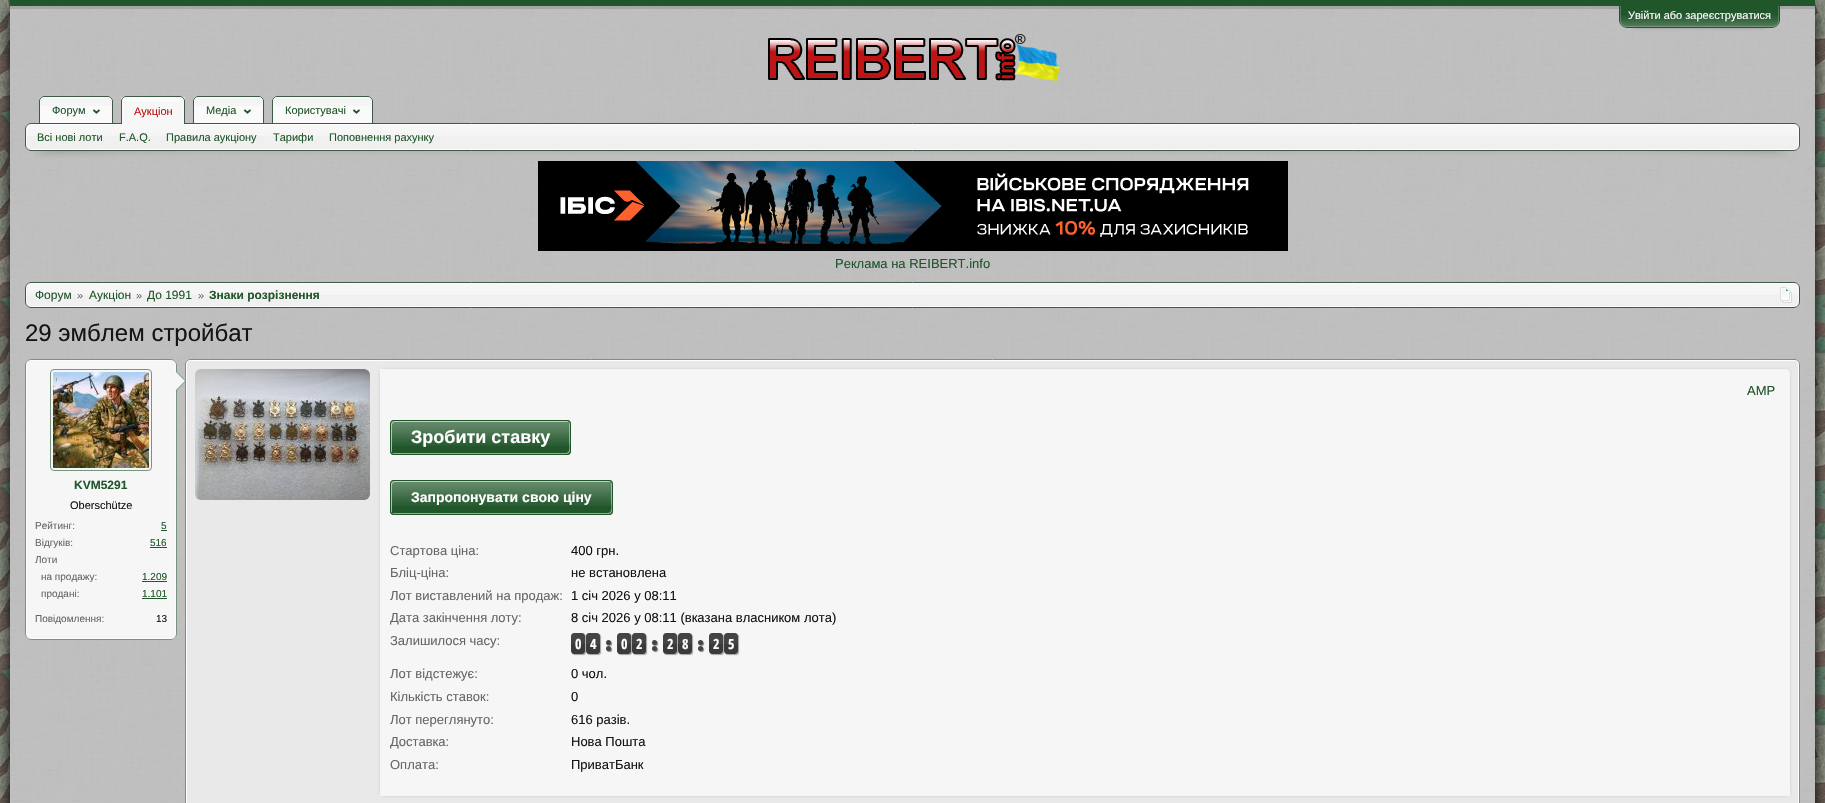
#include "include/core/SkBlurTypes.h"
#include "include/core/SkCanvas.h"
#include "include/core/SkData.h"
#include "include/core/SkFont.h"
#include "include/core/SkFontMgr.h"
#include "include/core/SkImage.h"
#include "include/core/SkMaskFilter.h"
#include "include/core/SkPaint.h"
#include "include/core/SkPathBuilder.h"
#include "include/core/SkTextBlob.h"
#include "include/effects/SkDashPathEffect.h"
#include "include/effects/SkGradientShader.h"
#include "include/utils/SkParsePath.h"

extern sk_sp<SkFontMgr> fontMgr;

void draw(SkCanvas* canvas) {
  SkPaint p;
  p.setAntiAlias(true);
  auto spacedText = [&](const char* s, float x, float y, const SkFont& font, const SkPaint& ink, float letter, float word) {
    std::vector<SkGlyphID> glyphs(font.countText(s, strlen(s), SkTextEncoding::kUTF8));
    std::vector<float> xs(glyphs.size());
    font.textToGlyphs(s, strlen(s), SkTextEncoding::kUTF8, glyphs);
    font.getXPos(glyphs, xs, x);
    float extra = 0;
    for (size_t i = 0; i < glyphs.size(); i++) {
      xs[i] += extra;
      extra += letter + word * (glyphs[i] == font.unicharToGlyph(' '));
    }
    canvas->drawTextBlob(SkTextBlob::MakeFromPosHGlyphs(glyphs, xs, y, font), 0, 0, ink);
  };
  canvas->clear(SK_ColorWHITE);
  canvas->drawImageRect(SkImages::DeferredFromEncodedData(SkData::MakeFromFileName("images/1.png")), SkRect::MakeLTRB(0, 0, 1825, 803), SkSamplingOptions());
  p.setColor(SK_ColorBLACK);
  p.setMaskFilter(SkMaskFilter::MakeBlur(kNormal_SkBlurStyle, 7.5f));
  canvas->drawRect(SkRect::MakeLTRB(10, 11, 1815, 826), p);
  p.setMaskFilter(nullptr);
  p.setColor(SkColorSetRGB(33, 86, 43));
  canvas->drawRect(SkRect::MakeLTRB(10, 0, 1815, 6), p);
  p.setColor(SkColorSetRGB(192, 192, 192));
  canvas->drawRect(SkRect::MakeLTRB(10, 6, 1815, 803), p);
  canvas->drawImageRect(SkImages::DeferredFromEncodedData(SkData::MakeFromFileName("images/3.png")), SkRect::MakeLTRB(10, 6, 1815, 802), SkSamplingOptions());
  p.setColor(SkColorSetARGB(128, 0, 0, 0));
  p.setMaskFilter(SkMaskFilter::MakeBlur(kNormal_SkBlurStyle, 2.5f));
  canvas->drawRoundRect(SkRect::MakeLTRB(1633, 22, 1766, 26), 4, 4, p);
  p.setMaskFilter(nullptr);
  p.setColor(SkColorSetARGB(33, 0, 0, 0));
  canvas->drawRect(SkRect::MakeLTRB(10, 6, 1815, 9), p);
  p.setColor(SkColorSetRGB(33, 86, 43));
  canvas->drawPath(SkPathBuilder().moveTo(1620, 6).lineTo(1779, 6).lineTo(1779, 20).cubicTo(1779, 24, 1776, 27, 1772, 27).lineTo(1627, 27).cubicTo(1623, 27, 1620, 24, 1620, 20).close().detach(), p);
  canvas->drawImageRect(SkImages::DeferredFromEncodedData(SkData::MakeFromFileName("images/2.png")), SkRect::MakeLTRB(1619, 15, 1780, 28), SkSamplingOptions());
  canvas->save();
  canvas->clipRect(SkRect::MakeLTRB(1619, 6, 1780, 30));
  p.setStyle(SkPaint::kStroke_Style);
  p.setStrokeWidth(1);
  p.setColor(SkColorSetARGB(51, 255, 255, 255));
  canvas->drawPath(SkPathBuilder().moveTo(1620.5f, 2.5f).lineTo(1778.5f, 2.5f).lineTo(1778.5f, 20).cubicTo(1778.5f, 23.5f, 1775.5f, 26.5f, 1772, 26.5f).lineTo(1627, 26.5f).cubicTo(1623.5f, 26.5f, 1620.5f, 23.5f, 1620.5f, 20).close().detach(), p);
  p.setStyle(SkPaint::kFill_Style);
  p.setColor(SkColorSetRGB(33, 86, 43));
  canvas->drawPath(SkPathBuilder(SkPathFillType::kEvenOdd).moveTo(1619, 2).lineTo(1780, 2).lineTo(1780, 20).cubicTo(1780, 24, 1776, 28, 1772, 28).lineTo(1627, 28).cubicTo(1623, 28, 1619, 24, 1619, 20).close().moveTo(1620, 2).lineTo(1779, 2).lineTo(1779, 20).cubicTo(1779, 24, 1776, 27, 1772, 27).lineTo(1627, 27).cubicTo(1623, 27, 1620, 24, 1620, 20).close().detach(), p);
  canvas->restore();
  canvas->drawImageRect(SkImages::DeferredFromEncodedData(SkData::MakeFromFileName("images/4.png")), SkRect::MakeLTRB(768, 34, 1060, 82), SkSamplingOptions());
  p.setColor(SkColorSetRGB(250, 250, 250));
  canvas->drawPath(SkPathBuilder().moveTo(44, 96).lineTo(108, 96).cubicTo(111, 96, 113, 98, 113, 101).lineTo(113, 125).lineTo(39, 125).lineTo(39, 101).cubicTo(39, 98, 41, 96, 44, 96).close().detach(), p);
  canvas->drawImageRect(SkImages::DeferredFromEncodedData(SkData::MakeFromFileName("images/5.png")), SkRect::MakeLTRB(39, 97, 113, 106), SkSamplingOptions());
  p.setStyle(SkPaint::kStroke_Style);
  canvas->drawPath(SkPathBuilder().moveTo(44, 97.5f).lineTo(108, 97.5f).cubicTo(110, 97.5f, 111.5f, 99, 111.5f, 101).lineTo(111.5f, 123.5f).lineTo(40.5f, 123.5f).lineTo(40.5f, 101).cubicTo(40.5f, 99, 42, 97.5f, 44, 97.5f).close().detach(), p);
  p.setColor(SkColorSetRGB(63, 89, 71));
  canvas->drawPath(SkPathBuilder().moveTo(44, 96.5f).lineTo(108, 96.5f).cubicTo(110.5f, 96.5f, 112.5f, 98.5f, 112.5f, 101).lineTo(112.5f, 124.5f).lineTo(39.5f, 124.5f).lineTo(39.5f, 101).cubicTo(39.5f, 98.5f, 41.5f, 96.5f, 44, 96.5f).close().detach(), p);
  canvas->drawImageRect(SkImages::DeferredFromEncodedData(SkData::MakeFromFileName("images/6.png")), SkRect::MakeLTRB(93, 109, 100, 114), SkSamplingOptions());
  p.setStyle(SkPaint::kFill_Style);
  p.setColor(SkColorSetRGB(247, 247, 247));
  canvas->drawPath(SkPathBuilder().moveTo(126, 96).lineTo(180, 96).cubicTo(183, 96, 185, 98, 185, 101).lineTo(185, 126).lineTo(121, 126).lineTo(121, 101).cubicTo(121, 98, 123, 96, 126, 96).close().detach(), p);
  p.setColor(SkColorSetARGB(122, 255, 255, 255));
  canvas->drawRect(SkRect::MakeLTRB(121, 97, 185, 101), p);
  p.setStyle(SkPaint::kStroke_Style);
  p.setColor(SkColorSetRGB(250, 250, 250));
  canvas->drawPath(SkPathBuilder().moveTo(126, 97.5f).lineTo(180, 97.5f).cubicTo(182, 97.5f, 183.5f, 99, 183.5f, 101).lineTo(183.5f, 124.5f).lineTo(122.5f, 124.5f).lineTo(122.5f, 101).cubicTo(122.5f, 99, 124, 97.5f, 126, 97.5f).close().detach(), p);
  p.setColor(SkColorSetRGB(63, 89, 71));
  canvas->drawPath(SkPathBuilder().moveTo(126, 96.5f).lineTo(180, 96.5f).cubicTo(182.5f, 96.5f, 184.5f, 98.5f, 184.5f, 101).lineTo(184.5f, 125.5f).lineTo(121.5f, 125.5f).lineTo(121.5f, 101).cubicTo(121.5f, 98.5f, 123.5f, 96.5f, 126, 96.5f).close().detach(), p);
  p.setStyle(SkPaint::kFill_Style);
  p.setColor(SkColorSetRGB(250, 250, 250));
  canvas->drawPath(SkPathBuilder().moveTo(198, 96).lineTo(259, 96).cubicTo(262, 96, 264, 98, 264, 101).lineTo(264, 125).lineTo(193, 125).lineTo(193, 101).cubicTo(193, 98, 195, 96, 198, 96).close().detach(), p);
  canvas->drawImageRect(SkImages::DeferredFromEncodedData(SkData::MakeFromFileName("images/7.png")), SkRect::MakeLTRB(193, 97, 264, 106), SkSamplingOptions());
  p.setStyle(SkPaint::kStroke_Style);
  canvas->drawPath(SkPathBuilder().moveTo(198, 97.5f).lineTo(259, 97.5f).cubicTo(261, 97.5f, 262.5f, 99, 262.5f, 101).lineTo(262.5f, 123.5f).lineTo(194.5f, 123.5f).lineTo(194.5f, 101).cubicTo(194.5f, 99, 196, 97.5f, 198, 97.5f).close().detach(), p);
  p.setColor(SkColorSetRGB(63, 89, 71));
  canvas->drawPath(SkPathBuilder().moveTo(198, 96.5f).lineTo(259, 96.5f).cubicTo(261.5f, 96.5f, 263.5f, 98.5f, 263.5f, 101).lineTo(263.5f, 124.5f).lineTo(193.5f, 124.5f).lineTo(193.5f, 101).cubicTo(193.5f, 98.5f, 195.5f, 96.5f, 198, 96.5f).close().detach(), p);
  p.setStyle(SkPaint::kFill_Style);
  p.setColor(SkColorSetRGB(250, 250, 250));
  canvas->drawPath(SkPathBuilder().moveTo(277, 96).lineTo(368, 96).cubicTo(371, 96, 373, 98, 373, 101).lineTo(373, 125).lineTo(272, 125).lineTo(272, 101).cubicTo(272, 98, 274, 96, 277, 96).close().detach(), p);
  canvas->drawImageRect(SkImages::DeferredFromEncodedData(SkData::MakeFromFileName("images/8.png")), SkRect::MakeLTRB(272, 97, 373, 106), SkSamplingOptions());
  p.setStyle(SkPaint::kStroke_Style);
  canvas->drawPath(SkPathBuilder().moveTo(277, 97.5f).lineTo(368, 97.5f).cubicTo(370, 97.5f, 371.5f, 99, 371.5f, 101).lineTo(371.5f, 123.5f).lineTo(273.5f, 123.5f).lineTo(273.5f, 101).cubicTo(273.5f, 99, 275, 97.5f, 277, 97.5f).close().detach(), p);
  p.setColor(SkColorSetRGB(63, 89, 71));
  canvas->drawPath(SkPathBuilder().moveTo(277, 96.5f).lineTo(368, 96.5f).cubicTo(370.5f, 96.5f, 372.5f, 98.5f, 372.5f, 101).lineTo(372.5f, 124.5f).lineTo(272.5f, 124.5f).lineTo(272.5f, 101).cubicTo(272.5f, 98.5f, 274.5f, 96.5f, 277, 96.5f).close().detach(), p);
  p.setStyle(SkPaint::kFill_Style);
  p.setColor(SkColorSetRGB(240, 240, 240));
  canvas->drawRoundRect(SkRect::MakeLTRB(25, 123, 1800, 151), 6, 6, p);
  canvas->drawImageRect(SkImages::DeferredFromEncodedData(SkData::MakeFromFileName("images/10.png")), SkRect::MakeLTRB(25, 124, 1800, 136), SkSamplingOptions());
  p.setStyle(SkPaint::kStroke_Style);
  p.setColor(SkColorSetRGB(253, 253, 253));
  canvas->drawRoundRect(SkRect::MakeLTRB(26.5f, 124.5f, 1798.5f, 149.5f), 4.5f, 4.5f, p);
  p.setColor(SkColorSetRGB(63, 89, 71));
  canvas->drawRoundRect(SkRect::MakeLTRB(25.5f, 123.5f, 1799.5f, 150.5f), 5.5f, 5.5f, p);
  p.setStyle(SkPaint::kFill_Style);
  p.setColor(SkColorSetRGB(247, 247, 247));
  canvas->drawRect(SkRect::MakeLTRB(122, 123, 184, 125), p);
  canvas->drawImageRect(SkImages::DeferredFromEncodedData(SkData::MakeFromFileName("images/6.png")), SkRect::MakeLTRB(244, 109, 251, 114), SkSamplingOptions());
  canvas->drawImageRect(SkImages::DeferredFromEncodedData(SkData::MakeFromFileName("images/6.png")), SkRect::MakeLTRB(353, 109, 360, 114), SkSamplingOptions());
  canvas->drawImageRect(SkImages::DeferredFromEncodedData(SkData::MakeFromFileName("images/9.png")), SkRect::MakeLTRB(34, 151, 1790, 159), SkSamplingOptions());
  canvas->drawImageRect(SkImages::DeferredFromEncodedData(SkData::MakeFromFileName("images/11.png")), SkRect::MakeLTRB(538, 161, 1288, 251), SkSamplingOptions());
  p.setColor(SkColorSetRGB(240, 240, 240));
  canvas->drawRoundRect(SkRect::MakeLTRB(25, 282, 1800, 308), 6, 6, p);
  canvas->drawImageRect(SkImages::DeferredFromEncodedData(SkData::MakeFromFileName("images/12.png")), SkRect::MakeLTRB(25, 283, 1800, 295), SkSamplingOptions());
  p.setStyle(SkPaint::kStroke_Style);
  p.setColor(SkColorSetRGB(253, 253, 253));
  canvas->drawRoundRect(SkRect::MakeLTRB(26.5f, 283.5f, 1798.5f, 306.5f), 4.5f, 4.5f, p);
  p.setColor(SkColorSetRGB(63, 89, 71));
  canvas->drawRoundRect(SkRect::MakeLTRB(25.5f, 282.5f, 1799.5f, 307.5f), 5.5f, 5.5f, p);
  canvas->drawImageRect(SkImages::DeferredFromEncodedData(SkData::MakeFromFileName("images/13.png")), SkRect::MakeLTRB(1780, 287, 1792, 303), SkSamplingOptions());
  p.setStyle(SkPaint::kFill_Style);
  p.setColor(SkColorSetRGB(246, 246, 246));
  canvas->drawRoundRect(SkRect::MakeLTRB(25, 359, 177, 640), 6, 6, p);
  p.setStyle(SkPaint::kStroke_Style);
  p.setColor(SkColorSetRGB(252, 252, 252));
  canvas->drawRoundRect(SkRect::MakeLTRB(26.5f, 360.5f, 175.5f, 638.5f), 4.5f, 4.5f, p);
  p.setColor(SkColorSetRGB(118, 148, 127));
  canvas->drawRoundRect(SkRect::MakeLTRB(25.5f, 359.5f, 176.5f, 639.5f), 5.5f, 5.5f, p);
  canvas->drawRoundRect(SkRect::MakeLTRB(50.5f, 369.5f, 151.5f, 470.5f), 3.5f, 3.5f, p);
  canvas->drawImageRect(SkImages::DeferredFromEncodedData(SkData::MakeFromFileName("images/14.png")), SkRect::MakeLTRB(53, 372, 149, 468), SkSamplingOptions());
  p.setStyle(SkPaint::kFill_Style);
  canvas->drawPath(SkPathBuilder().moveTo(176, 391).lineTo(176, 371).lineTo(186, 381).close().detach(), p);
  p.setColor(SkColorSetRGB(246, 246, 246));
  canvas->drawPath(SkPathBuilder().moveTo(175, 391).lineTo(175, 371).lineTo(185, 381).close().detach(), p);
  p.setColor(SkColorSetRGB(33, 86, 43));
  canvas->drawRect(SkRect::MakeLTRB(161, 530, 167, 531), p);
  canvas->drawRect(SkRect::MakeLTRB(150, 547, 167, 548), p);
  canvas->drawRect(SkRect::MakeLTRB(142, 581, 167, 582), p);
  canvas->drawRect(SkRect::MakeLTRB(142, 598, 167, 599), p);
  p.setColor(SkColorSetRGB(233, 233, 233));
  canvas->drawRoundRect(SkRect::MakeLTRB(185, 359, 1800, 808), 5, 5, p);
  p.setStyle(SkPaint::kStroke_Style);
  p.setColor(SK_ColorWHITE);
  canvas->drawRoundRect(SkRect::MakeLTRB(186.5f, 360.5f, 1798.5f, 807.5f), 3.5f, 3.5f, p);
  p.setColor(SkColorSetRGB(118, 148, 127));
  canvas->drawRoundRect(SkRect::MakeLTRB(185.5f, 359.5f, 1799.5f, 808.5f), 4.5f, 4.5f, p);
  canvas->drawImageRect(SkImages::DeferredFromEncodedData(SkData::MakeFromFileName("images/15.png")), SkRect::MakeLTRB(195, 369, 370, 500), SkSamplingOptions());
  p.setStyle(SkPaint::kFill_Style);
  p.setColor(SkColorSetRGB(204, 204, 204));
  p.setMaskFilter(SkMaskFilter::MakeBlur(kNormal_SkBlurStyle, 1.5f));
  canvas->drawRoundRect(SkRect::MakeLTRB(380, 369, 1790, 796), 5, 5, p);
  p.setMaskFilter(nullptr);
  p.setColor(SkColorSetRGB(246, 246, 246));
  canvas->drawPath(SkPathBuilder().moveTo(380, 369).lineTo(1785, 369).cubicTo(1788, 369, 1790, 371, 1790, 374).lineTo(1790, 796).lineTo(380, 796).close().detach(), p);
  p.setColor(SkColorSetRGB(33, 86, 43));
  canvas->drawRoundRect(SkRect::MakeLTRB(390, 420, 571, 455), 4, 4, p);
  canvas->drawImageRect(SkImages::DeferredFromEncodedData(SkData::MakeFromFileName("images/16.png")), SkRect::MakeLTRB(390, 421, 571, 446), SkSamplingOptions());
  p.setColor(SkColorSetARGB(153, 255, 255, 255));
  canvas->drawPath(SkPathBuilder().moveTo(392, 453).cubicTo(392, 454, 393, 454, 394, 454).lineTo(567, 454).cubicTo(569, 454, 570, 453, 570, 451).lineTo(570, 424).cubicTo(570, 423, 570, 422, 569, 422).lineTo(569, 441).cubicTo(569, 444, 571, 453, 566, 453).close().detach(), p);
  p.setColor(SkColorSetARGB(26, 0, 0, 0));
  canvas->drawPath(SkPathBuilder().moveTo(392, 453).cubicTo(392, 454, 393, 454, 394, 454).lineTo(567, 454).cubicTo(569, 454, 570, 453, 570, 451).lineTo(570, 424).cubicTo(570, 423, 570, 422, 569, 422).lineTo(569, 441).cubicTo(569, 444, 571, 453, 566, 453).close().detach(), p);
  p.setColor(SkColorSetARGB(153, 255, 255, 255));
  canvas->drawPath(SkPathBuilder().moveTo(395, 422).lineTo(569, 422).cubicTo(569, 421, 568, 421, 567, 421).lineTo(394, 421).cubicTo(392, 421, 391, 422, 391, 424).lineTo(391, 451).cubicTo(391, 452, 391, 453, 392, 453).lineTo(392, 430).cubicTo(392, 427, 391, 422, 395, 422).close().detach(), p);
  p.setStyle(SkPaint::kStroke_Style);
  p.setColor(SkColorSetRGB(33, 86, 43));
  canvas->drawRoundRect(SkRect::MakeLTRB(390.5f, 420.5f, 570.5f, 454.5f), 3.5f, 3.5f, p);
  p.setStyle(SkPaint::kFill_Style);
  canvas->drawRoundRect(SkRect::MakeLTRB(390, 480, 613, 515), 4, 4, p);
  canvas->drawImageRect(SkImages::DeferredFromEncodedData(SkData::MakeFromFileName("images/17.png")), SkRect::MakeLTRB(390, 481, 613, 506), SkSamplingOptions());
  p.setColor(SkColorSetARGB(153, 255, 255, 255));
  canvas->drawPath(SkPathBuilder().moveTo(392, 513).cubicTo(392, 514, 393, 514, 394, 514).lineTo(609, 514).cubicTo(611, 514, 612, 513, 612, 511).lineTo(612, 484).cubicTo(612, 483, 612, 482, 611, 482).lineTo(611, 501).cubicTo(611, 504, 613, 513, 608, 513).close().detach(), p);
  p.setColor(SkColorSetARGB(26, 0, 0, 0));
  canvas->drawPath(SkPathBuilder().moveTo(392, 513).cubicTo(392, 514, 393, 514, 394, 514).lineTo(609, 514).cubicTo(611, 514, 612, 513, 612, 511).lineTo(612, 484).cubicTo(612, 483, 612, 482, 611, 482).lineTo(611, 501).cubicTo(611, 504, 613, 513, 608, 513).close().detach(), p);
  p.setColor(SkColorSetARGB(153, 255, 255, 255));
  canvas->drawPath(SkPathBuilder().moveTo(395, 482).lineTo(611, 482).cubicTo(611, 481, 610, 481, 609, 481).lineTo(394, 481).cubicTo(392, 481, 391, 482, 391, 484).lineTo(391, 511).cubicTo(391, 512, 391, 513, 392, 513).lineTo(392, 490).cubicTo(392, 487, 391, 482, 395, 482).close().detach(), p);
  p.setStyle(SkPaint::kStroke_Style);
  p.setColor(SkColorSetRGB(33, 86, 43));
  canvas->drawRoundRect(SkRect::MakeLTRB(390.5f, 480.5f, 612.5f, 514.5f), 3.5f, 3.5f, p);
  p.setStyle(SkPaint::kFill_Style);
  p.setColor(SkColorSetARGB(89, 4, 4, 4));
  p.setMaskFilter(SkMaskFilter::MakeBlur(kNormal_SkBlurStyle, 0.5f));
  canvas->drawRoundRect(SkRect::MakeLTRB(572, 634, 586, 655), 3, 3, p);
  p.setMaskFilter(nullptr);
  p.setColor(SkColorSetRGB(58, 58, 58));
  canvas->drawPath(SkPathBuilder().moveTo(571, 644).lineTo(585, 644).lineTo(585, 651).cubicTo(585, 652.5f, 583.5f, 654, 582, 654).lineTo(574, 654).cubicTo(572.5f, 654, 571, 652.5f, 571, 651).close().detach(), p);
  p.setColor(SkColorSetRGB(68, 68, 68));
  canvas->drawPath(SkPathBuilder().moveTo(574, 633).lineTo(582, 633).cubicTo(583.5f, 633, 585, 634.5f, 585, 636).lineTo(585, 644).lineTo(571, 644).lineTo(571, 636).cubicTo(571, 634.5f, 572.5f, 633, 574, 633).close().detach(), p);
  p.setColor(SkColorSetARGB(89, 4, 4, 4));
  p.setMaskFilter(SkMaskFilter::MakeBlur(kNormal_SkBlurStyle, 0.5f));
  canvas->drawRoundRect(SkRect::MakeLTRB(587, 634, 601, 655), 3, 3, p);
  p.setMaskFilter(nullptr);
  p.setColor(SkColorSetRGB(58, 58, 58));
  canvas->drawPath(SkPathBuilder().moveTo(586, 644).lineTo(600, 644).lineTo(600, 651).cubicTo(600, 652.5f, 598.5f, 654, 597, 654).lineTo(589, 654).cubicTo(587.5f, 654, 586, 652.5f, 586, 651).close().detach(), p);
  p.setColor(SkColorSetRGB(68, 68, 68));
  canvas->drawPath(SkPathBuilder().moveTo(589, 633).lineTo(597, 633).cubicTo(598.5f, 633, 600, 634.5f, 600, 636).lineTo(600, 644).lineTo(586, 644).lineTo(586, 636).cubicTo(586, 634.5f, 587.5f, 633, 589, 633).close().detach(), p);
  p.setColor(SkColorSetARGB(128, 4, 4, 4));
  p.setMaskFilter(SkMaskFilter::MakeBlur(kNormal_SkBlurStyle, 0.5f));
  canvas->drawRoundRect(SkRect::MakeLTRB(607, 641, 612, 646), 2.5f, 2.5f, p);
  p.setMaskFilter(nullptr);
  p.setColor(SkColorSetRGB(68, 68, 68));
  canvas->drawCircle(608.5f, 642.5f, 2.5f, p);
  p.setColor(SkColorSetARGB(128, 4, 4, 4));
  p.setMaskFilter(SkMaskFilter::MakeBlur(kNormal_SkBlurStyle, 0.5f));
  canvas->drawRoundRect(SkRect::MakeLTRB(607, 647, 612, 652), 2.5f, 2.5f, p);
  p.setMaskFilter(nullptr);
  p.setColor(SkColorSetRGB(68, 68, 68));
  canvas->drawCircle(608.5f, 648.5f, 2.5f, p);
  p.setColor(SkColorSetARGB(89, 4, 4, 4));
  p.setMaskFilter(SkMaskFilter::MakeBlur(kNormal_SkBlurStyle, 0.5f));
  canvas->drawRoundRect(SkRect::MakeLTRB(618, 634, 632, 655), 3, 3, p);
  p.setMaskFilter(nullptr);
  p.setColor(SkColorSetRGB(58, 58, 58));
  canvas->drawPath(SkPathBuilder().moveTo(617, 644).lineTo(631, 644).lineTo(631, 651).cubicTo(631, 652.5f, 629.5f, 654, 628, 654).lineTo(620, 654).cubicTo(618.5f, 654, 617, 652.5f, 617, 651).close().detach(), p);
  p.setColor(SkColorSetRGB(68, 68, 68));
  canvas->drawPath(SkPathBuilder().moveTo(620, 633).lineTo(628, 633).cubicTo(629.5f, 633, 631, 634.5f, 631, 636).lineTo(631, 644).lineTo(617, 644).lineTo(617, 636).cubicTo(617, 634.5f, 618.5f, 633, 620, 633).close().detach(), p);
  p.setColor(SkColorSetARGB(89, 4, 4, 4));
  p.setMaskFilter(SkMaskFilter::MakeBlur(kNormal_SkBlurStyle, 0.5f));
  canvas->drawRoundRect(SkRect::MakeLTRB(633, 634, 647, 655), 3, 3, p);
  p.setMaskFilter(nullptr);
  p.setColor(SkColorSetRGB(58, 58, 58));
  canvas->drawPath(SkPathBuilder().moveTo(632, 644).lineTo(646, 644).lineTo(646, 651).cubicTo(646, 652.5f, 644.5f, 654, 643, 654).lineTo(635, 654).cubicTo(633.5f, 654, 632, 652.5f, 632, 651).close().detach(), p);
  p.setColor(SkColorSetRGB(68, 68, 68));
  canvas->drawPath(SkPathBuilder().moveTo(635, 633).lineTo(643, 633).cubicTo(644.5f, 633, 646, 634.5f, 646, 636).lineTo(646, 644).lineTo(632, 644).lineTo(632, 636).cubicTo(632, 634.5f, 633.5f, 633, 635, 633).close().detach(), p);
  p.setColor(SkColorSetARGB(128, 4, 4, 4));
  p.setMaskFilter(SkMaskFilter::MakeBlur(kNormal_SkBlurStyle, 0.5f));
  canvas->drawRoundRect(SkRect::MakeLTRB(653, 641, 658, 646), 2.5f, 2.5f, p);
  p.setMaskFilter(nullptr);
  p.setColor(SkColorSetRGB(68, 68, 68));
  canvas->drawCircle(654.5f, 642.5f, 2.5f, p);
  p.setColor(SkColorSetARGB(128, 4, 4, 4));
  p.setMaskFilter(SkMaskFilter::MakeBlur(kNormal_SkBlurStyle, 0.5f));
  canvas->drawRoundRect(SkRect::MakeLTRB(653, 647, 658, 652), 2.5f, 2.5f, p);
  p.setMaskFilter(nullptr);
  p.setColor(SkColorSetRGB(68, 68, 68));
  canvas->drawCircle(654.5f, 648.5f, 2.5f, p);
  canvas->save();
  canvas->clipPath(SkPathBuilder(SkPathFillType::kEvenOdd).moveTo(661, 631).lineTo(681, 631).lineTo(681, 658).lineTo(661, 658).close().moveTo(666, 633).lineTo(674, 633).cubicTo(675.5f, 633, 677, 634.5f, 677, 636).lineTo(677, 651).cubicTo(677, 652.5f, 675.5f, 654, 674, 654).lineTo(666, 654).cubicTo(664.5f, 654, 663, 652.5f, 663, 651).lineTo(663, 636).cubicTo(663, 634.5f, 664.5f, 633, 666, 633).close().detach(), true);
  p.setColor(SkColorSetARGB(89, 4, 4, 4));
  p.setMaskFilter(SkMaskFilter::MakeBlur(kNormal_SkBlurStyle, 0.5f));
  canvas->drawRoundRect(SkRect::MakeLTRB(664, 634, 678, 655), 3, 3, p);
  p.setMaskFilter(nullptr);
  canvas->restore();
  p.setColor(SkColorSetRGB(58, 58, 58));
  canvas->drawPath(SkPathBuilder().moveTo(663, 644).lineTo(677, 644).lineTo(677, 651).cubicTo(677, 652.5f, 675.5f, 654, 674, 654).lineTo(666, 654).cubicTo(664.5f, 654, 663, 652.5f, 663, 651).close().detach(), p);
  p.setColor(SkColorSetRGB(68, 68, 68));
  canvas->drawPath(SkPathBuilder().moveTo(666, 633).lineTo(674, 633).cubicTo(675.5f, 633, 677, 634.5f, 677, 636).lineTo(677, 644).lineTo(663, 644).lineTo(663, 636).cubicTo(663, 634.5f, 664.5f, 633, 666, 633).close().detach(), p);
  p.setColor(SkColorSetARGB(89, 4, 4, 4));
  p.setMaskFilter(SkMaskFilter::MakeBlur(kNormal_SkBlurStyle, 0.5f));
  canvas->drawRoundRect(SkRect::MakeLTRB(679, 634, 693, 655), 3, 3, p);
  p.setMaskFilter(nullptr);
  p.setColor(SkColorSetRGB(58, 58, 58));
  canvas->drawPath(SkPathBuilder().moveTo(678, 644).lineTo(692, 644).lineTo(692, 651).cubicTo(692, 652.5f, 690.5f, 654, 689, 654).lineTo(681, 654).cubicTo(679.5f, 654, 678, 652.5f, 678, 651).close().detach(), p);
  p.setColor(SkColorSetRGB(68, 68, 68));
  canvas->drawPath(SkPathBuilder().moveTo(681, 633).lineTo(689, 633).cubicTo(690.5f, 633, 692, 634.5f, 692, 636).lineTo(692, 644).lineTo(678, 644).lineTo(678, 636).cubicTo(678, 634.5f, 679.5f, 633, 681, 633).close().detach(), p);
  p.setColor(SkColorSetARGB(128, 4, 4, 4));
  p.setMaskFilter(SkMaskFilter::MakeBlur(kNormal_SkBlurStyle, 0.5f));
  canvas->drawRoundRect(SkRect::MakeLTRB(699, 641, 704, 646), 2.5f, 2.5f, p);
  p.setMaskFilter(nullptr);
  p.setColor(SkColorSetRGB(68, 68, 68));
  canvas->drawCircle(700.5f, 642.5f, 2.5f, p);
  p.setColor(SkColorSetARGB(128, 4, 4, 4));
  p.setMaskFilter(SkMaskFilter::MakeBlur(kNormal_SkBlurStyle, 0.5f));
  canvas->drawRoundRect(SkRect::MakeLTRB(699, 647, 704, 652), 2.5f, 2.5f, p);
  p.setMaskFilter(nullptr);
  p.setColor(SkColorSetRGB(68, 68, 68));
  canvas->drawCircle(700.5f, 648.5f, 2.5f, p);
  canvas->save();
  canvas->clipPath(SkPathBuilder(SkPathFillType::kEvenOdd).moveTo(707, 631).lineTo(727, 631).lineTo(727, 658).lineTo(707, 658).close().moveTo(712, 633).lineTo(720, 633).cubicTo(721.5f, 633, 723, 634.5f, 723, 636).lineTo(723, 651).cubicTo(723, 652.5f, 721.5f, 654, 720, 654).lineTo(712, 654).cubicTo(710.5f, 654, 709, 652.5f, 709, 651).lineTo(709, 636).cubicTo(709, 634.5f, 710.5f, 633, 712, 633).close().detach(), true);
  p.setColor(SkColorSetARGB(89, 4, 4, 4));
  p.setMaskFilter(SkMaskFilter::MakeBlur(kNormal_SkBlurStyle, 0.5f));
  canvas->drawRoundRect(SkRect::MakeLTRB(710, 634, 724, 655), 3, 3, p);
  p.setMaskFilter(nullptr);
  canvas->restore();
  p.setColor(SkColorSetRGB(58, 58, 58));
  canvas->drawPath(SkPathBuilder().moveTo(709, 644).lineTo(723, 644).lineTo(723, 651).cubicTo(723, 652.5f, 721.5f, 654, 720, 654).lineTo(712, 654).cubicTo(710.5f, 654, 709, 652.5f, 709, 651).close().detach(), p);
  p.setColor(SkColorSetRGB(68, 68, 68));
  canvas->drawPath(SkPathBuilder().moveTo(712, 633).lineTo(720, 633).cubicTo(721.5f, 633, 723, 634.5f, 723, 636).lineTo(723, 644).lineTo(709, 644).lineTo(709, 636).cubicTo(709, 634.5f, 710.5f, 633, 712, 633).close().detach(), p);
  canvas->save();
  canvas->clipPath(SkPathBuilder(SkPathFillType::kEvenOdd).moveTo(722, 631).lineTo(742, 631).lineTo(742, 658).lineTo(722, 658).close().moveTo(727, 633).lineTo(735, 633).cubicTo(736.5f, 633, 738, 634.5f, 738, 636).lineTo(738, 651).cubicTo(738, 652.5f, 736.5f, 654, 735, 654).lineTo(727, 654).cubicTo(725.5f, 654, 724, 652.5f, 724, 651).lineTo(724, 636).cubicTo(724, 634.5f, 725.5f, 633, 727, 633).close().detach(), true);
  p.setColor(SkColorSetARGB(89, 4, 4, 4));
  p.setMaskFilter(SkMaskFilter::MakeBlur(kNormal_SkBlurStyle, 0.5f));
  canvas->drawRoundRect(SkRect::MakeLTRB(725, 634, 739, 655), 3, 3, p);
  p.setMaskFilter(nullptr);
  canvas->restore();
  p.setColor(SkColorSetRGB(58, 58, 58));
  canvas->drawPath(SkPathBuilder().moveTo(724, 644).lineTo(738, 644).lineTo(738, 651).cubicTo(738, 652.5f, 736.5f, 654, 735, 654).lineTo(727, 654).cubicTo(725.5f, 654, 724, 652.5f, 724, 651).close().detach(), p);
  p.setColor(SkColorSetRGB(68, 68, 68));
  canvas->drawPath(SkPathBuilder().moveTo(727, 633).lineTo(735, 633).cubicTo(736.5f, 633, 738, 634.5f, 738, 636).lineTo(738, 644).lineTo(724, 644).lineTo(724, 636).cubicTo(724, 634.5f, 725.5f, 633, 727, 633).close().detach(), p);
  SkFont font1(fontMgr->matchFamilyStyle("Liberation Sans", SkFontStyle::Normal()), 11);
  font1.setSubpixel(true);
  p.setColor(SK_ColorWHITE);
  canvas->drawString("Увійти або зареєструватися", 1628, 19, font1, p);
  p.setColor(SkColorSetRGB(33, 86, 43));
  canvas->drawString("Форум", 52, 114, font1, p);
  p.setColor(SkColorSetRGB(187, 21, 21));
  canvas->drawString("Аукціон", 134, 115, font1, p);
  p.setColor(SkColorSetRGB(33, 86, 43));
  canvas->drawString("Медіа", 206, 114, font1, p);
  canvas->drawString("Користувачі", 285, 114, font1, p);
  canvas->drawString("Всі нові лоти", 37, 141, font1, p);
  canvas->drawString("F.A.Q.", 119, 141, font1, p);
  canvas->drawString("Правила аукціону", 166, 141, font1, p);
  canvas->drawString("Тарифи", 273, 141, font1, p);
  canvas->drawString("Поповнення рахунку", 329, 141, font1, p);
  SkFont font2(fontMgr->matchFamilyStyle("Liberation Sans", SkFontStyle::Normal()), 13);
  font2.setSubpixel(true);
  canvas->drawString("Реклама на REIBERT.info", 835, 268, font2, p);
  SkFont font3(fontMgr->matchFamilyStyle("Liberation Sans", SkFontStyle::Normal()), 12);
  font3.setSubpixel(true);
  canvas->drawString("Форум", 35, 299, font3, p);
  p.setColor(SkColorSetRGB(102, 102, 102));
  canvas->drawString("»", 77, 299, font1, p);
  p.setColor(SkColorSetRGB(33, 86, 43));
  canvas->drawString("Аукціон", 89, 299, font3, p);
  p.setColor(SkColorSetRGB(102, 102, 102));
  canvas->drawString("»", 136, 299, font1, p);
  p.setColor(SkColorSetRGB(33, 86, 43));
  canvas->drawString("До 1991", 147, 299, font3, p);
  p.setColor(SkColorSetRGB(102, 102, 102));
  canvas->drawString("»", 198, 299, font1, p);
  SkFont font4(fontMgr->matchFamilyStyle("Liberation Sans", SkFontStyle::Bold()), 12);
  font4.setSubpixel(true);
  p.setColor(SkColorSetRGB(33, 86, 43));
  canvas->drawString("Знаки розрізнення", 209, 299, font4, p);
  SkFont font5(fontMgr->matchFamilyStyle("Liberation Sans", SkFontStyle::Normal()), 24);
  font5.setSubpixel(true);
  p.setColor(SkColorSetRGB(20, 20, 20));
  canvas->drawString("29 эмблем стройбат", 25, 341, font5, p);
  p.setColor(SkColorSetRGB(33, 86, 43));
  canvas->drawString("KVM5291", 74, 489, font4, p);
  p.setColor(SkColorSetRGB(20, 20, 20));
  canvas->drawString("Oberschütze", 70, 509, font1, p);
  SkFont font6(fontMgr->matchFamilyStyle("Liberation Sans", SkFontStyle::Normal()), 10);
  font6.setSubpixel(true);
  p.setColor(SkColorSetRGB(102, 102, 102));
  canvas->drawString("Рейтинг:", 35, 529, font6, p);
  p.setColor(SkColorSetRGB(33, 86, 43));
  canvas->drawString("5", 161, 529, font6, p);
  p.setColor(SkColorSetRGB(102, 102, 102));
  canvas->drawString("Відгуків:", 35, 546, font6, p);
  p.setColor(SkColorSetRGB(33, 86, 43));
  canvas->drawString("516", 150, 546, font6, p);
  p.setColor(SkColorSetRGB(102, 102, 102));
  canvas->drawString("Лоти", 35, 563, font6, p);
  canvas->drawString("на продажу:", 41, 580, font6, p);
  p.setColor(SkColorSetRGB(33, 86, 43));
  canvas->drawString("1.209", 142, 580, font6, p);
  p.setColor(SkColorSetRGB(102, 102, 102));
  canvas->drawString("продані:", 41, 597, font6, p);
  p.setColor(SkColorSetRGB(33, 86, 43));
  canvas->drawString("1.101", 142, 597, font6, p);
  p.setColor(SkColorSetRGB(102, 102, 102));
  canvas->drawString("Повідомлення:", 35, 622, font6, p);
  p.setColor(SkColorSetRGB(20, 20, 20));
  canvas->drawString("13", 156, 622, font6, p);
  p.setColor(SkColorSetRGB(33, 86, 43));
  canvas->drawString("AMP", 1747, 395, font2, p);
  SkFont font7(fontMgr->matchFamilyStyle("Liberation Sans", SkFontStyle::Bold()), 18);
  font7.setSubpixel(true);
  p.setColor(SK_ColorWHITE);
  canvas->drawString("Зробити ставку", 411, 443, font7, p);
  SkFont font8(fontMgr->matchFamilyStyle("Liberation Sans", SkFontStyle::Bold()), 14);
  font8.setSubpixel(true);
  canvas->drawString("Запропонувати свою ціну", 411, 502, font8, p);
  p.setColor(SkColorSetRGB(102, 102, 102));
  canvas->drawString("Стартова ціна:", 390, 555, font2, p);
  p.setColor(SkColorSetRGB(20, 20, 20));
  canvas->drawString("400 грн.", 571, 555, font2, p);
  p.setColor(SkColorSetRGB(102, 102, 102));
  canvas->drawString("Бліц-ціна:", 390, 577, font2, p);
  p.setColor(SkColorSetRGB(20, 20, 20));
  canvas->drawString("не встановлена", 571, 577, font2, p);
  p.setColor(SkColorSetRGB(102, 102, 102));
  canvas->drawString("Лот виставлений на продаж:", 390, 600, font2, p);
  p.setColor(SkColorSetRGB(20, 20, 20));
  canvas->drawString("1 січ 2026 у 08:11", 571, 600, font2, p);
  p.setColor(SkColorSetRGB(102, 102, 102));
  canvas->drawString("Дата закінчення лоту:", 390, 622, font2, p);
  p.setColor(SkColorSetRGB(20, 20, 20));
  canvas->drawString("8 січ 2026 у 08:11 (вказана власником лота)", 571, 622, font2, p);
  p.setColor(SkColorSetRGB(102, 102, 102));
  canvas->drawString("Залишилося часу:", 390, 645, font2, p);
  SkFont font9(fontMgr->matchFamilyStyle("Open Sans Condensed", SkFontStyle::Bold()), 14);
  font9.setSubpixel(true);
  p.setColor(SK_ColorWHITE);
  spacedText("0", 575, 649, font9, p, -1, 0);
  spacedText("4", 590, 649, font9, p, -1, 0);
  spacedText("0", 621, 649, font9, p, -1, 0);
  spacedText("2", 636, 649, font9, p, -1, 0);
  spacedText("2", 667, 649, font9, p, -1, 0);
  spacedText("8", 682, 649, font9, p, -1, 0);
  spacedText("2", 713, 649, font9, p, -1, 0);
  spacedText("5", 728, 649, font9, p, -1, 0);
  p.setColor(SkColorSetRGB(102, 102, 102));
  canvas->drawString("Лот відстежує:", 390, 678, font2, p);
  p.setColor(SkColorSetRGB(20, 20, 20));
  canvas->drawString("0 чол.", 571, 678, font2, p);
  p.setColor(SkColorSetRGB(102, 102, 102));
  canvas->drawString("Кількість ставок:", 390, 701, font2, p);
  p.setColor(SkColorSetRGB(20, 20, 20));
  canvas->drawString("0", 571, 701, font2, p);
  p.setColor(SkColorSetRGB(102, 102, 102));
  canvas->drawString("Лот переглянуто:", 390, 724, font2, p);
  p.setColor(SkColorSetRGB(20, 20, 20));
  canvas->drawString("616 разів.", 571, 724, font2, p);
  p.setColor(SkColorSetRGB(102, 102, 102));
  canvas->drawString("Доставка:", 390, 746, font2, p);
  p.setColor(SkColorSetRGB(20, 20, 20));
  canvas->drawString("Нова Пошта", 571, 746, font2, p);
  p.setColor(SkColorSetRGB(102, 102, 102));
  canvas->drawString("Оплата:", 390, 769, font2, p);
  p.setColor(SkColorSetRGB(20, 20, 20));
  canvas->drawString("ПриватБанк", 571, 769, font2, p);
}
